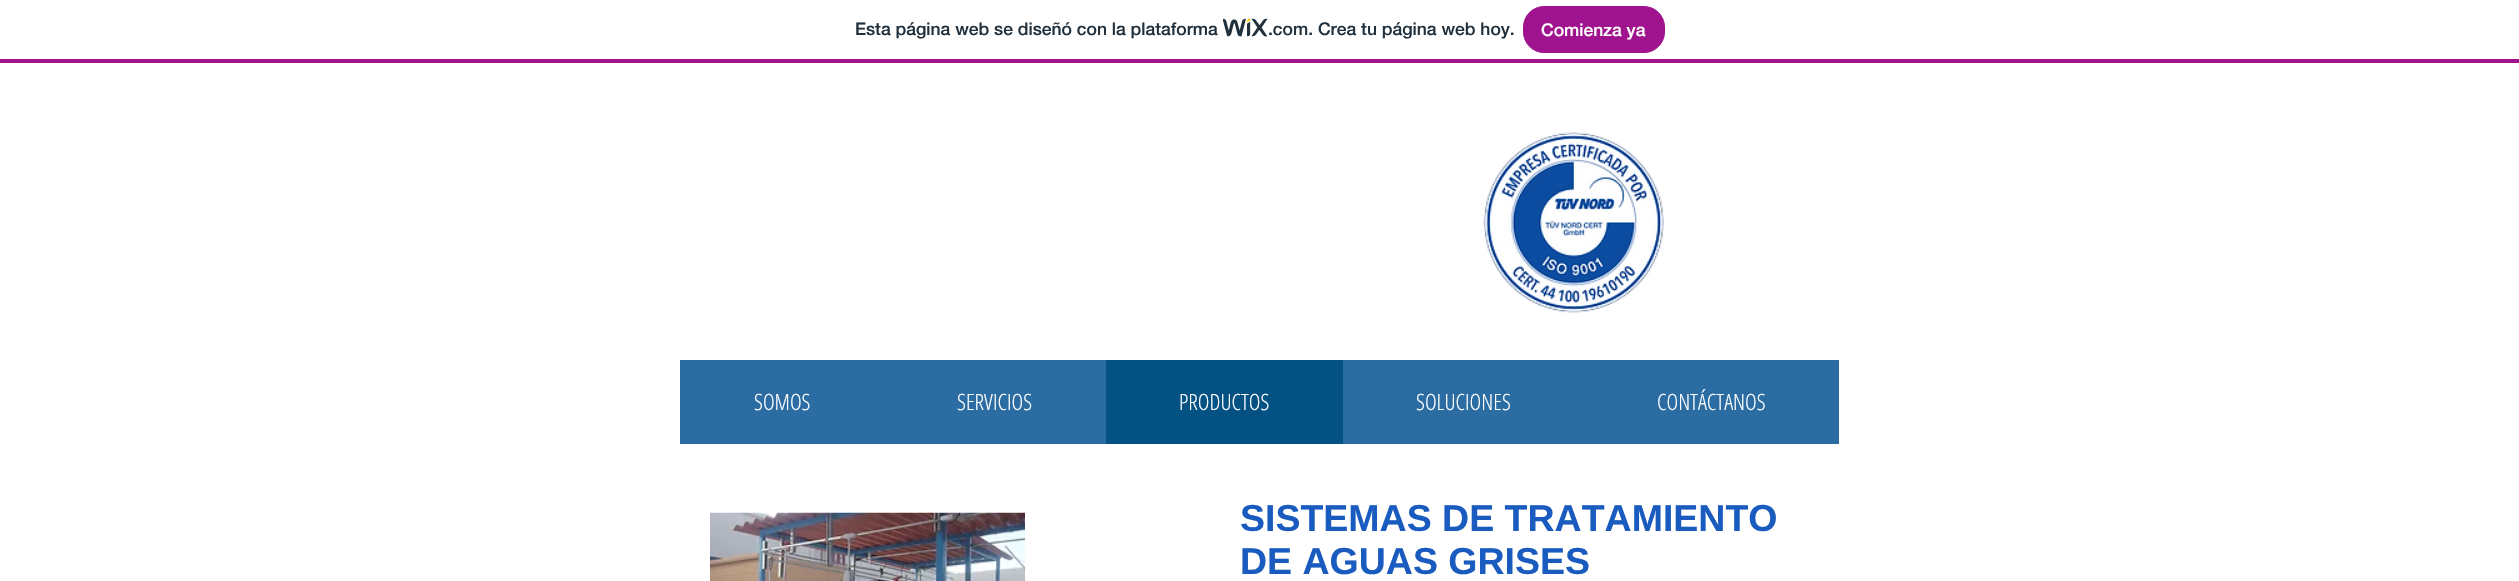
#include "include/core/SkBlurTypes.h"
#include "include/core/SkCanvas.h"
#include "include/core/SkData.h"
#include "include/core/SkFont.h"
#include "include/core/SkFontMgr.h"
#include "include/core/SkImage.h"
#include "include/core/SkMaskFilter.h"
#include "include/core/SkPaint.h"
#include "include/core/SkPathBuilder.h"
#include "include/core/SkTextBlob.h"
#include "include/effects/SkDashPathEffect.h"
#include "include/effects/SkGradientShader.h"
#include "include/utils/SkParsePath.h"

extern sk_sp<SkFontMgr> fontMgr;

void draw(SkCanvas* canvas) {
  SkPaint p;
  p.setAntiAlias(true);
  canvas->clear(SK_ColorWHITE);
  p.setColor(SkColorSetRGB(160, 19, 142));
  canvas->drawRect(SkRect::MakeLTRB(0, 59, 2519, 63), p);
  canvas->drawImageRect(SkImages::DeferredFromEncodedData(SkData::MakeFromFileName("images/1.png")), SkRect::MakeLTRB(1223, 18, 1268, 37), SkSamplingOptions());
  canvas->drawRoundRect(SkRect::MakeLTRB(1523.5f, 6.5f, 1664.5f, 52.5f), 20.5f, 20.5f, p);
  p.setStyle(SkPaint::kStroke_Style);
  p.setStrokeWidth(1);
  canvas->drawRoundRect(SkRect::MakeLTRB(1523.5f, 6.5f, 1664.5f, 52.5f), 20.5f, 20.5f, p);
  canvas->drawImageRect(SkImages::DeferredFromEncodedData(SkData::MakeFromFileName("images/2.png")), SkRect::MakeLTRB(1483, 132, 1664, 313), SkSamplingOptions());
  p.setStyle(SkPaint::kFill_Style);
  p.setColor(SkColorSetRGB(43, 108, 163));
  canvas->drawRect(SkRect::MakeLTRB(680, 360, 1106, 444), p);
  p.setColor(SkColorSetRGB(4, 81, 132));
  canvas->drawRect(SkRect::MakeLTRB(1106, 360, 1343, 444), p);
  p.setColor(SkColorSetRGB(43, 108, 163));
  canvas->drawRect(SkRect::MakeLTRB(1343, 360, 1839, 444), p);
  canvas->drawImageRect(SkImages::DeferredFromEncodedData(SkData::MakeFromFileName("images/3.png")), SkRect::MakeLTRB(710, 512, 1025, 581), SkSamplingOptions());
  SkFont font1(fontMgr->matchFamilyStyle("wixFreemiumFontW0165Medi", SkFontStyle(500, SkFontStyle::kNormal_Width, SkFontStyle::kUpright_Slant)), 17.5f);
  font1.setSubpixel(true);
  p.setColor(SkColorSetRGB(32, 48, 60));
  canvas->drawString("Esta página web se diseñó con la plataforma", 855, 35, font1, p);
  canvas->drawString(".com. Crea tu página web hoy.", 1268, 35, font1, p);
  p.setColor(SK_ColorWHITE);
  canvas->drawString("Comienza ya", 1541, 36, font1, p);
  SkFont font2(fontMgr->matchFamilyStyle("Open Sans Condensed", SkFontStyle(300, SkFontStyle::kNormal_Width, SkFontStyle::kUpright_Slant)), 22.5f);
  font2.setSubpixel(true);
  canvas->drawString("SOMOS", 754, 410, font2, p);
  canvas->drawString("SERVICIOS", 957, 410, font2, p);
  canvas->drawString("PRODUCTOS", 1179, 410, font2, p);
  canvas->drawString("SOLUCIONES", 1416, 410, font2, p);
  canvas->drawString("CONTÁCTANOS", 1657, 410, font2, p);
  SkFont font3(fontMgr->matchFamilyStyle("Liberation Sans", SkFontStyle::Bold()), 37.5f);
  font3.setSubpixel(true);
  p.setColor(SkColorSetRGB(25, 91, 191));
  canvas->drawString("SISTEMAS DE TRATAMIENTO", 1240, 531, font3, p);
  canvas->drawString("DE AGUAS GRISES", 1240, 574, font3, p);
}
